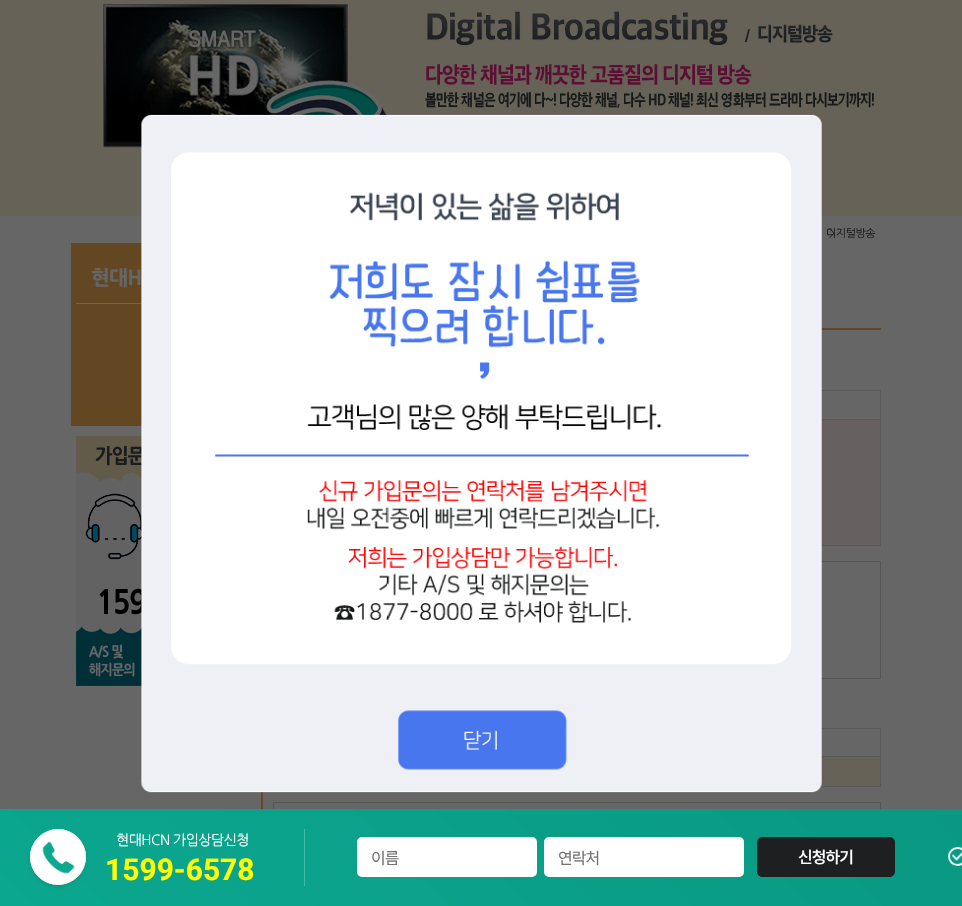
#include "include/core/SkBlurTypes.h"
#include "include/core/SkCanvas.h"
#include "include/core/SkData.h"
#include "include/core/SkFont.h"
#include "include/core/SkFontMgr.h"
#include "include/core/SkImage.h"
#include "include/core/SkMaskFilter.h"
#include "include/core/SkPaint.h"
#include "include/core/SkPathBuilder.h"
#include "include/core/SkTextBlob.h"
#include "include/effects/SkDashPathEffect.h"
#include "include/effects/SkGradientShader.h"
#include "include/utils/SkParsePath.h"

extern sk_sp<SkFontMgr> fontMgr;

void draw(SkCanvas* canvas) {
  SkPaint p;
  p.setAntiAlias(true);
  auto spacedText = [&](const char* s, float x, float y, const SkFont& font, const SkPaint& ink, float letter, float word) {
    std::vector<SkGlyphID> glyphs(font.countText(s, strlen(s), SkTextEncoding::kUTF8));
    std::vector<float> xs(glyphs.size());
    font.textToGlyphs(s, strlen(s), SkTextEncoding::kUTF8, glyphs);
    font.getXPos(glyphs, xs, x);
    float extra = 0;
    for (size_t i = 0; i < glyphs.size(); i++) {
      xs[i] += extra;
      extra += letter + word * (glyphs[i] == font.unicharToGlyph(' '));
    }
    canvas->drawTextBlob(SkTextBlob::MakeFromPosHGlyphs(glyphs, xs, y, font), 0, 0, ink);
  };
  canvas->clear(SkColorSetRGB(102, 102, 102));
  p.setColor(SkColorSetRGB(102, 98, 88));
  canvas->drawRect(SkRect::MakeLTRB(0, 0, 962, 216), p);
  canvas->drawImageRect(SkImages::DeferredFromEncodedData(SkData::MakeFromFileName("images/1.png")), SkRect::MakeLTRB(103, 4, 874, 148), SkSamplingOptions());
  p.setColor(SkColorSetRGB(99, 71, 34));
  canvas->drawRect(SkRect::MakeLTRB(71, 243, 142, 426), p);
  p.setColor(SkColorSetRGB(102, 102, 102));
  canvas->drawRect(SkRect::MakeLTRB(76, 303, 142, 304), p);
  canvas->drawImageRect(SkImages::DeferredFromEncodedData(SkData::MakeFromFileName("images/3.png")), SkRect::MakeLTRB(76, 436, 142, 686), SkSamplingOptions());
  p.setColor(SkColorSetRGB(99, 71, 34));
  canvas->drawRect(SkRect::MakeLTRB(261, 792, 263, 809), p);
  canvas->drawRect(SkRect::MakeLTRB(821, 328, 881, 330), p);
  p.setColor(SkColorSetRGB(89, 89, 89));
  canvas->drawRect(SkRect::MakeLTRB(821, 390, 881, 391), p);
  p.setColor(SkColorSetRGB(102, 96, 96));
  canvas->drawRect(SkRect::MakeLTRB(821, 420, 880, 545), p);
  p.setColor(SkColorSetRGB(89, 89, 89));
  canvas->drawRect(SkRect::MakeLTRB(821, 419, 881, 420), p);
  canvas->drawRect(SkRect::MakeLTRB(880, 419, 881, 546), p);
  canvas->drawRect(SkRect::MakeLTRB(821, 545, 881, 546), p);
  p.setStyle(SkPaint::kStroke_Style);
  p.setStrokeWidth(1);
  p.setColor(SkColorSetRGB(85, 85, 85));
  canvas->drawRect(SkRect::MakeLTRB(273.5f, 561.5f, 880.5f, 678.5f), p);
  p.setStyle(SkPaint::kFill_Style);
  p.setColor(SkColorSetRGB(89, 89, 89));
  canvas->drawRect(SkRect::MakeLTRB(821, 728, 881, 729), p);
  p.setColor(SkColorSetRGB(102, 98, 88));
  canvas->drawRect(SkRect::MakeLTRB(820, 757, 880, 786), p);
  p.setColor(SkColorSetRGB(89, 89, 89));
  canvas->drawRect(SkRect::MakeLTRB(821, 756, 881, 757), p);
  canvas->drawRect(SkRect::MakeLTRB(880, 756, 881, 787), p);
  canvas->drawRect(SkRect::MakeLTRB(819, 786, 881, 787), p);
  canvas->drawImageRect(SkImages::DeferredFromEncodedData(SkData::MakeFromFileName("images/2.png")), SkRect::MakeLTRB(141, 114, 822, 793), SkSamplingOptions());
  canvas->drawRect(SkRect::MakeLTRB(880, 390, 881, 420), p);
  canvas->drawRect(SkRect::MakeLTRB(880, 728, 881, 757), p);
  p.setStyle(SkPaint::kStroke_Style);
  p.setColor(SkColorSetRGB(85, 85, 85));
  canvas->drawRect(SkRect::MakeLTRB(273.5f, 802.5f, 880.5f, 900.5f), p);
  p.setStyle(SkPaint::kFill_Style);
  {
    const SkColor colors[] = {SkColorSetRGB(10, 152, 130), SkColorSetRGB(11, 167, 143)};
    const float stops[] = {0, 1};
    const SkPoint ends[] = {{746, 593}, {216, 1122}};
    p.setShader(SkGradientShader::MakeLinear(ends, colors, stops, 2, SkTileMode::kClamp));
    p.setAlpha(255);
  }
  canvas->drawRect(SkRect::MakeLTRB(0, 809, 962, 906), p);
  p.setShader(nullptr);
  p.setColor(SkColorSetARGB(26, 0, 0, 0));
  p.setMaskFilter(SkMaskFilter::MakeBlur(kNormal_SkBlurStyle, 2));
  canvas->drawRoundRect(SkRect::MakeLTRB(30, 831, 86, 887), 28, 28, p);
  p.setMaskFilter(nullptr);
  p.setColor(SK_ColorWHITE);
  canvas->drawCircle(58, 857, 28, p);
  canvas->drawImageRect(SkImages::DeferredFromEncodedData(SkData::MakeFromFileName("images/4.png")), SkRect::MakeLTRB(42, 841, 75, 874), SkSamplingOptions());
  p.setStyle(SkPaint::kStroke_Style);
  p.setColor(SkColorSetRGB(238, 238, 238));
  canvas->drawCircle(58, 857, 27.5f, p);
  p.setStyle(SkPaint::kFill_Style);
  p.setColor(SkColorSetRGB(72, 185, 168));
  canvas->drawRect(SkRect::MakeLTRB(304, 829, 305, 886), p);
  p.setColor(SK_ColorWHITE);
  canvas->drawRoundRect(SkRect::MakeLTRB(358, 838, 536, 876), 4, 4, p);
  p.setStyle(SkPaint::kStroke_Style);
  p.setStrokeWidth(2);
  canvas->drawRoundRect(SkRect::MakeLTRB(358, 838, 536, 876), 4, 4, p);
  p.setStyle(SkPaint::kFill_Style);
  canvas->drawRoundRect(SkRect::MakeLTRB(545, 838, 743, 876), 4, 4, p);
  p.setStyle(SkPaint::kStroke_Style);
  canvas->drawRoundRect(SkRect::MakeLTRB(545, 838, 743, 876), 4, 4, p);
  p.setStyle(SkPaint::kFill_Style);
  p.setColor(SkColorSetRGB(29, 31, 32));
  canvas->drawRoundRect(SkRect::MakeLTRB(757.5f, 837.5f, 894.5f, 876.5f), 4.5f, 4.5f, p);
  p.setStyle(SkPaint::kStroke_Style);
  p.setStrokeWidth(1);
  canvas->drawRoundRect(SkRect::MakeLTRB(757.5f, 837.5f, 894.5f, 876.5f), 4.5f, 4.5f, p);
  canvas->drawImageRect(SkImages::DeferredFromEncodedData(SkData::MakeFromFileName("images/5.png")), SkRect::MakeLTRB(951, 852, 962, 861), SkSamplingOptions());
  p.setStrokeWidth(2);
  p.setColor(SkColorSetRGB(231, 245, 243));
  canvas->drawCircle(957.5f, 856.5f, 8.5f, p);
  SkFont font1(fontMgr->matchFamilyStyle("NanumGothic", SkFontStyle::Normal()), 11);
  font1.setSubpixel(true);
  p.setStyle(SkPaint::kFill_Style);
  p.setColor(SkColorSetRGB(27, 27, 27));
  spacedText(">", 829, 237, font1, p, -0.5f, 0);
  spacedText("디지털방송", 826, 237, font1, p, -0.5f, 0);
  SkFont font2(fontMgr->matchFamilyStyle("NanumGothic", SkFontStyle(800, SkFontStyle::kNormal_Width, SkFontStyle::kUpright_Slant)), 20);
  font2.setSubpixel(true);
  p.setColor(SkColorSetRGB(102, 102, 102));
  spacedText("현대H", 91, 285, font2, p, -0.5f, 0);
  SkFont font3(fontMgr->matchFamilyStyle("NanumGothic", SkFontStyle::Normal()), 14);
  font3.setSubpixel(true);
  p.setColor(SK_ColorWHITE);
  spacedText("현대HCN 가입상담신청", 116, 845, font3, p, -0.5f, 0);
  SkFont font4(fontMgr->matchFamilyStyle("Roboto", SkFontStyle::Bold()), 30);
  font4.setSubpixel(true);
  p.setColor(SkColorSetRGB(255, 255, 0));
  canvas->drawString("1599-6578", 105, 880, font4, p);
  SkFont font5(fontMgr->matchFamilyStyle("Noto Sans CJK KR", SkFontStyle::Normal()), 16);
  font5.setSubpixel(true);
  p.setColor(SkColorSetRGB(117, 117, 117));
  spacedText("이름", 371, 864, font5, p, -1, 0);
  spacedText("연락처", 558, 864, font5, p, -1, 0);
  SkFont font6(fontMgr->matchFamilyStyle("Noto Sans CJK KR", SkFontStyle(500, SkFontStyle::kNormal_Width, SkFontStyle::kUpright_Slant)), 16);
  font6.setSubpixel(true);
  p.setColor(SK_ColorWHITE);
  spacedText("신청하기", 798, 863, font6, p, -1, 0);
}
